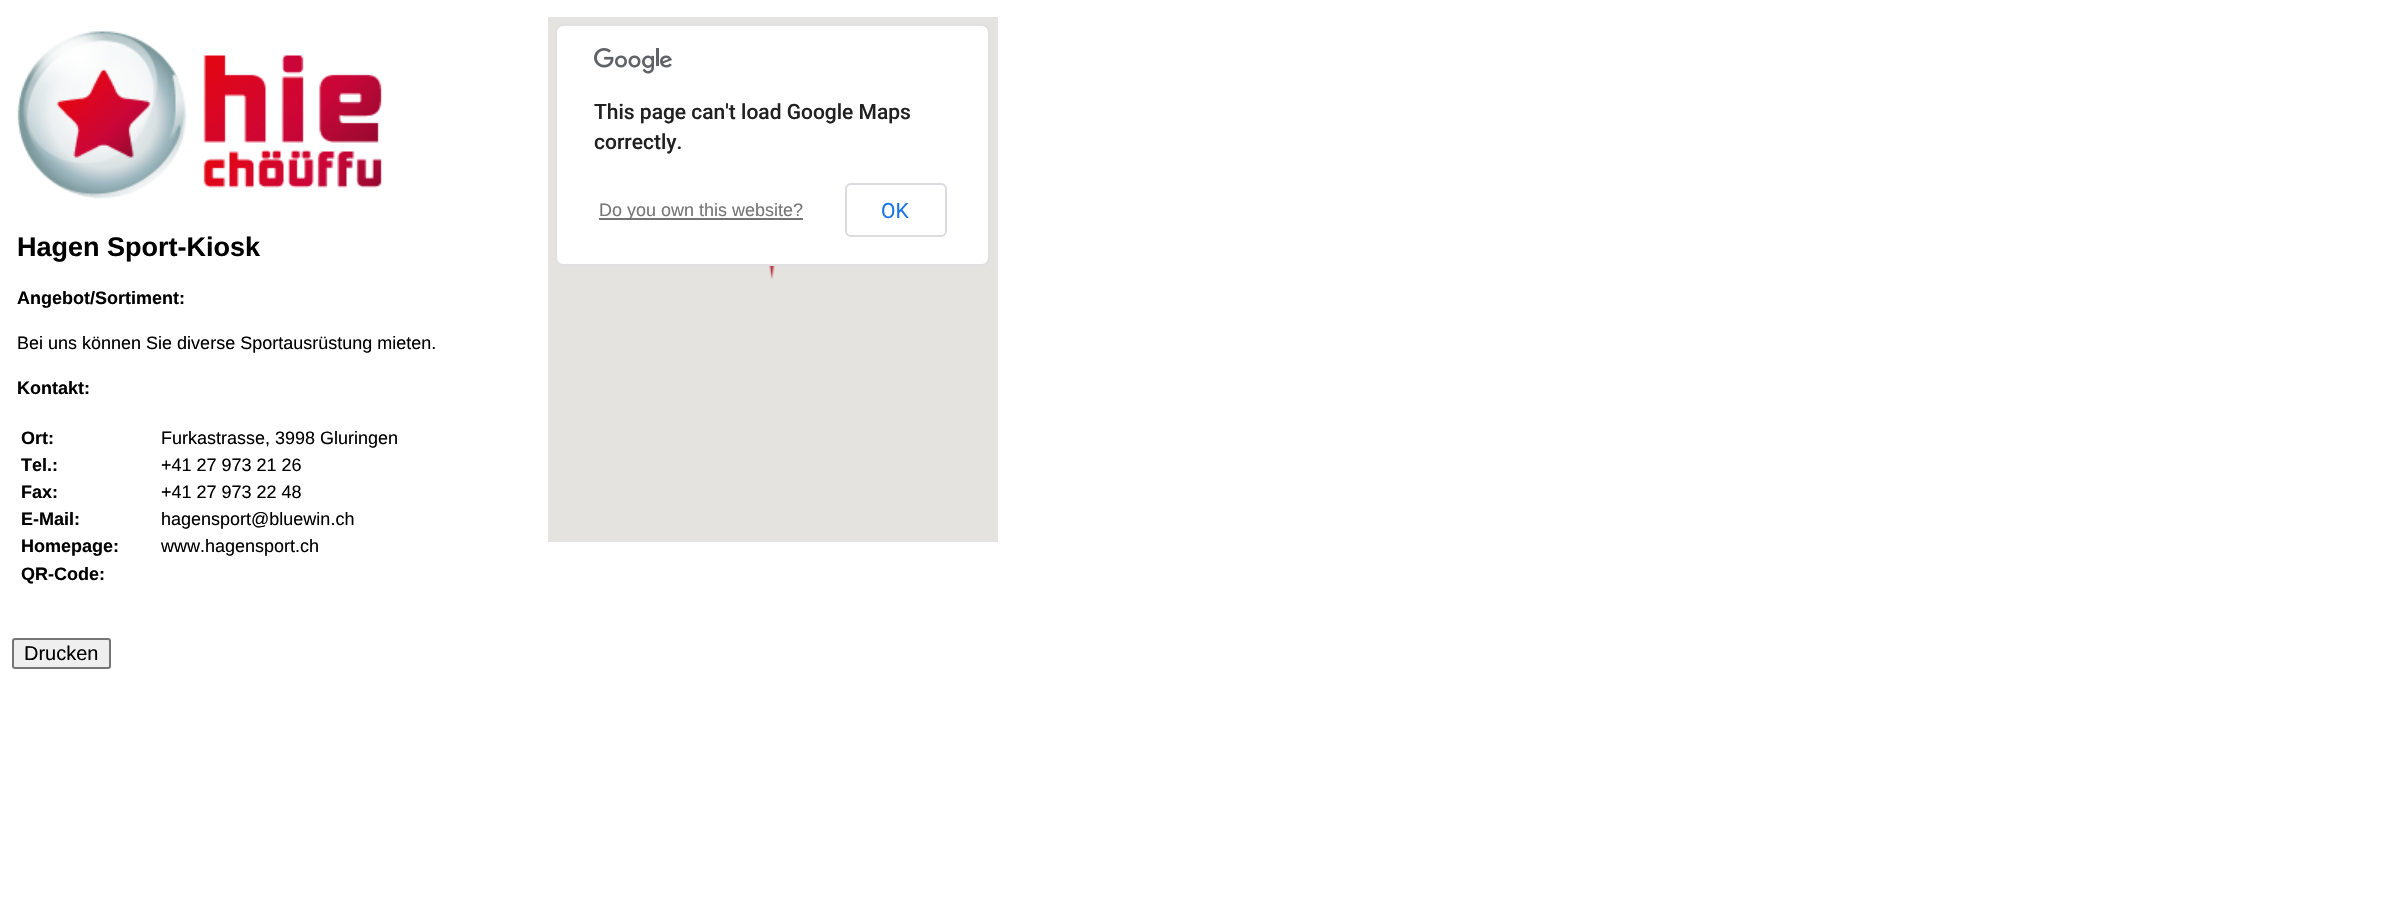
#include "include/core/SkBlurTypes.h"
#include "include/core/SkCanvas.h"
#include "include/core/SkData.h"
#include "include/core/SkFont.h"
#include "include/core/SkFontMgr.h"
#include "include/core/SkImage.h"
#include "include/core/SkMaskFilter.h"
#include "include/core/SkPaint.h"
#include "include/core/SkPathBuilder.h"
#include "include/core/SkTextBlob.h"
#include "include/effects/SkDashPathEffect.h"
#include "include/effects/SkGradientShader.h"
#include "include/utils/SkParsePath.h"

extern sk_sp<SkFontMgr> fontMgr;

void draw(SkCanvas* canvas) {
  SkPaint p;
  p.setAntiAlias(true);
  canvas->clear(SK_ColorWHITE);
  p.setColor(SkColorSetRGB(229, 227, 223));
  canvas->drawRect(SkRect::MakeLTRB(548, 17, 998, 542), p);
  canvas->drawImageRect(SkImages::DeferredFromEncodedData(SkData::MakeFromFileName("images/1.png")), SkRect::MakeLTRB(769, 266, 775, 279), SkSamplingOptions());
  p.setColor(SK_ColorWHITE);
  canvas->drawRoundRect(SkRect::MakeLTRB(555, 24, 990, 266), 8, 8, p);
  p.setStyle(SkPaint::kStroke_Style);
  p.setStrokeWidth(2);
  p.setColor(SkColorSetARGB(31, 0, 0, 0));
  canvas->drawRoundRect(SkRect::MakeLTRB(556, 25, 989, 265), 7, 7, p);
  canvas->drawImageRect(SkImages::DeferredFromEncodedData(SkData::MakeFromFileName("images/2.png")), SkRect::MakeLTRB(594, 48, 672, 74), SkSamplingOptions());
  p.setStyle(SkPaint::kFill_Style);
  p.setColor(SkColorSetRGB(117, 117, 117));
  canvas->drawRect(SkRect::MakeLTRB(599, 218, 803, 220), p);
  p.setStyle(SkPaint::kStroke_Style);
  p.setColor(SkColorSetRGB(218, 220, 224));
  canvas->drawRoundRect(SkRect::MakeLTRB(846, 184, 946, 236), 5, 5, p);
  canvas->drawImageRect(SkImages::DeferredFromEncodedData(SkData::MakeFromFileName("images/3.png")), SkRect::MakeLTRB(17, 31, 382, 199), SkSamplingOptions());
  p.setStyle(SkPaint::kFill_Style);
  p.setColor(SkColorSetRGB(239, 239, 239));
  canvas->drawRoundRect(SkRect::MakeLTRB(13, 639, 110, 668), 2, 2, p);
  p.setStyle(SkPaint::kStroke_Style);
  p.setColor(SkColorSetRGB(118, 118, 118));
  canvas->drawRoundRect(SkRect::MakeLTRB(13, 639, 110, 668), 2, 2, p);
  SkFont font1(fontMgr->matchFamilyStyle("Roboto", SkFontStyle(500, SkFontStyle::kNormal_Width, SkFontStyle::kUpright_Slant)), 21);
  font1.setSubpixel(true);
  p.setStyle(SkPaint::kFill_Style);
  p.setColor(SkColorSetRGB(33, 33, 33));
  canvas->drawString("This page can't load Google Maps", 594, 119, font1, p);
  canvas->drawString("correctly.", 594, 149, font1, p);
  SkFont font2(fontMgr->matchFamilyStyle("Liberation Sans", SkFontStyle::Normal()), 18);
  font2.setSubpixel(true);
  p.setColor(SkColorSetRGB(117, 117, 117));
  canvas->drawString("Do you own this website?", 599, 216, font2, p);
  SkFont font3(fontMgr->matchFamilyStyle("Roboto", SkFontStyle::Normal()), 21);
  font3.setSubpixel(true);
  p.setColor(SkColorSetRGB(26, 115, 232));
  canvas->drawString("OK", 881, 218, font3, p);
  SkFont font4(fontMgr->matchFamilyStyle("Liberation Sans", SkFontStyle::Bold()), 27);
  font4.setSubpixel(true);
  p.setColor(SK_ColorBLACK);
  canvas->drawString("Hagen Sport-Kiosk", 17, 256, font4, p);
  SkFont font5(fontMgr->matchFamilyStyle("Liberation Sans", SkFontStyle::Bold()), 18);
  font5.setSubpixel(true);
  canvas->drawString("Angebot/Sortiment:", 17, 304, font5, p);
  canvas->drawString("Bei uns können Sie diverse Sportausrüstung mieten.", 17, 349, font2, p);
  canvas->drawString("Kontakt:", 17, 394, font5, p);
  canvas->drawString("Ort:", 21, 444, font5, p);
  canvas->drawString("Furkastrasse, 3998 Gluringen", 161, 444, font2, p);
  canvas->drawString("Tel.:", 21, 471, font5, p);
  canvas->drawString("+41 27 973 21 26", 161, 471, font2, p);
  canvas->drawString("Fax:", 21, 498, font5, p);
  canvas->drawString("+41 27 973 22 48", 161, 498, font2, p);
  canvas->drawString("E-Mail:", 21, 525, font5, p);
  canvas->drawString("hagensport@bluewin.ch", 161, 525, font2, p);
  canvas->drawString("Homepage:", 21, 552, font5, p);
  canvas->drawString("www.hagensport.ch", 161, 552, font2, p);
  canvas->drawString("QR-Code:", 21, 580, font5, p);
  SkFont font6(fontMgr->matchFamilyStyle("Liberation Sans", SkFontStyle::Normal()), 20);
  font6.setSubpixel(true);
  canvas->drawString("Drucken", 24, 660, font6, p);
}
